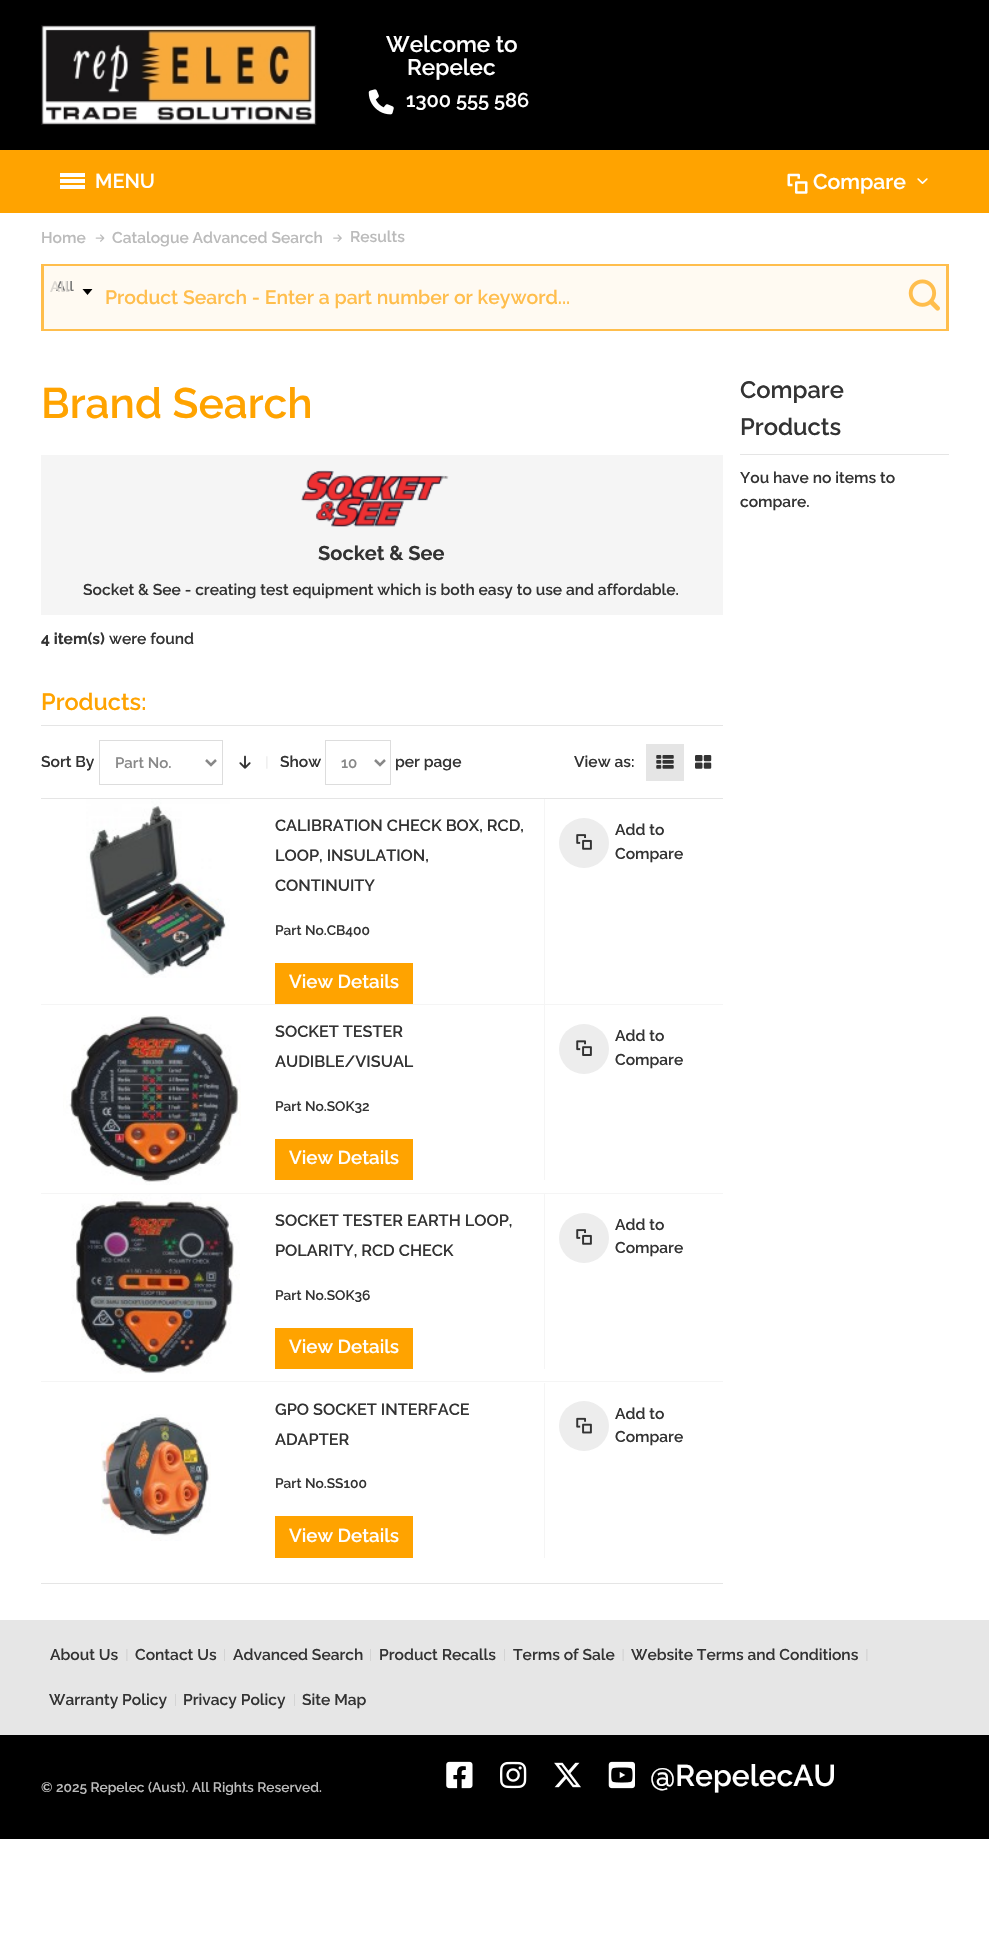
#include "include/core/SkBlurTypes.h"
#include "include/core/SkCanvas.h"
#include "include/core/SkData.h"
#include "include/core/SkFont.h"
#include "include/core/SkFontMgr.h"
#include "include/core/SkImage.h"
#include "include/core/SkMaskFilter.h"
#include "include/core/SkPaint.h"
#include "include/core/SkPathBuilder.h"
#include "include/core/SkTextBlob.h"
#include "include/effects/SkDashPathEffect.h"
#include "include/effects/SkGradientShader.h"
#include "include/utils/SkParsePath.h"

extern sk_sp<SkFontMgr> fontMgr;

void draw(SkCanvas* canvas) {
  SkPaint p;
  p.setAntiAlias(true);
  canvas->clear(SK_ColorWHITE);
  p.setColor(SK_ColorBLACK);
  canvas->drawRect(SkRect::MakeLTRB(0, 0, 989, 150), p);
  canvas->drawImageRect(SkImages::DeferredFromEncodedData(SkData::MakeFromFileName("images/1.png")), SkRect::MakeLTRB(41, 25, 317, 125), SkSamplingOptions());
  canvas->drawImageRect(SkImages::DeferredFromEncodedData(SkData::MakeFromFileName("images/2.png")), SkRect::MakeLTRB(368, 89, 394, 115), SkSamplingOptions());
  p.setColor(SkColorSetRGB(255, 163, 0));
  canvas->drawRect(SkRect::MakeLTRB(0, 150, 989, 213), p);
  p.setColor(SK_ColorWHITE);
  canvas->drawRect(SkRect::MakeLTRB(60, 173, 85, 177), p);
  canvas->drawRect(SkRect::MakeLTRB(60, 179, 85, 183), p);
  canvas->drawRect(SkRect::MakeLTRB(60, 185, 85, 189), p);
  canvas->drawImageRect(SkImages::DeferredFromEncodedData(SkData::MakeFromFileName("images/3.png")), SkRect::MakeLTRB(787, 173, 808, 194), SkSamplingOptions());
  canvas->drawImageRect(SkImages::DeferredFromEncodedData(SkData::MakeFromFileName("images/4.png")), SkRect::MakeLTRB(917, 178, 928, 184), SkSamplingOptions());
  canvas->drawImageRect(SkImages::DeferredFromEncodedData(SkData::MakeFromFileName("images/5.png")), SkRect::MakeLTRB(95, 234, 105, 242), SkSamplingOptions());
  canvas->drawImageRect(SkImages::DeferredFromEncodedData(SkData::MakeFromFileName("images/6.png")), SkRect::MakeLTRB(333, 234, 342, 242), SkSamplingOptions());
  p.setStyle(SkPaint::kStroke_Style);
  p.setStrokeWidth(3);
  p.setColor(SkColorSetRGB(255, 190, 77));
  canvas->drawRect(SkRect::MakeLTRB(42.5f, 265.5f, 947.5f, 329.5f), p);
  p.setStyle(SkPaint::kFill_Style);
  p.setColor(SkColorSetRGB(255, 250, 242));
  canvas->drawRect(SkRect::MakeLTRB(44, 266, 946, 329), p);
  p.setColor(SK_ColorBLACK);
  canvas->drawPath(SkPathBuilder().moveTo(82.5f, 289).lineTo(92.5f, 289).lineTo(87.5f, 295).close().detach(), p);
  p.setStyle(SkPaint::kStroke_Style);
  p.setStrokeWidth(2.5f);
  p.setColor(SkColorSetRGB(255, 250, 242));
  canvas->drawPath(SkPathBuilder().moveTo(89, 284).lineTo(94, 289).lineTo(99, 284).detach(), p);
  canvas->drawImageRect(SkImages::DeferredFromEncodedData(SkData::MakeFromFileName("images/7.png")), SkRect::MakeLTRB(908, 279, 940, 311), SkSamplingOptions());
  p.setStyle(SkPaint::kFill_Style);
  p.setColor(SkColorSetRGB(245, 245, 245));
  canvas->drawRect(SkRect::MakeLTRB(41, 455, 723, 615), p);
  canvas->drawImageRect(SkImages::DeferredFromEncodedData(SkData::MakeFromFileName("images/8.png")), SkRect::MakeLTRB(301, 470, 449, 527), SkSamplingOptions());
  p.setColor(SkColorSetRGB(229, 229, 229));
  canvas->drawRect(SkRect::MakeLTRB(41, 725, 723, 726), p);
  canvas->drawRect(SkRect::MakeLTRB(41, 798, 723, 799), p);
  canvas->drawImageRect(SkImages::DeferredFromEncodedData(SkData::MakeFromFileName("images/9.png")), SkRect::MakeLTRB(266, 756, 268, 769), SkSamplingOptions());
  p.setStyle(SkPaint::kStroke_Style);
  p.setStrokeWidth(1);
  p.setColor(SkColorSetRGB(221, 221, 221));
  canvas->drawRect(SkRect::MakeLTRB(99.5f, 740.5f, 222.5f, 784.5f), p);
  p.setStrokeWidth(2.5f);
  p.setColor(SkColorSetRGB(136, 136, 136));
  canvas->drawPath(SkPathBuilder().moveTo(206, 760).lineTo(211, 765).lineTo(216, 760).detach(), p);
  canvas->drawImageRect(SkImages::DeferredFromEncodedData(SkData::MakeFromFileName("images/10.png")), SkRect::MakeLTRB(239, 755, 251, 769), SkSamplingOptions());
  p.setStrokeWidth(1);
  p.setColor(SkColorSetRGB(221, 221, 221));
  canvas->drawRect(SkRect::MakeLTRB(325.5f, 740.5f, 390.5f, 784.5f), p);
  p.setStrokeWidth(2.5f);
  p.setColor(SkColorSetRGB(136, 136, 136));
  canvas->drawPath(SkPathBuilder().moveTo(375, 760).lineTo(380, 765).lineTo(385, 760).detach(), p);
  p.setStyle(SkPaint::kFill_Style);
  p.setColor(SkColorSetRGB(229, 229, 229));
  canvas->drawRect(SkRect::MakeLTRB(646, 744, 684, 781), p);
  canvas->drawImageRect(SkImages::DeferredFromEncodedData(SkData::MakeFromFileName("images/11.png")), SkRect::MakeLTRB(656, 755, 674, 769), SkSamplingOptions());
  canvas->drawImageRect(SkImages::DeferredFromEncodedData(SkData::MakeFromFileName("images/12.png")), SkRect::MakeLTRB(695, 755, 712, 769), SkSamplingOptions());
  canvas->drawImageRect(SkImages::DeferredFromEncodedData(SkData::MakeFromFileName("images/13.png")), SkRect::MakeLTRB(86, 799, 230, 978), SkSamplingOptions());
  p.setColor(SkColorSetRGB(245, 245, 245));
  canvas->drawRect(SkRect::MakeLTRB(544, 799, 545, 1004), p);
  p.setColor(SkColorSetRGB(255, 163, 0));
  canvas->drawRect(SkRect::MakeLTRB(275, 963, 413, 1004), p);
  p.setColor(SkColorSetRGB(237, 237, 237));
  canvas->drawCircle(584, 843, 25, p);
  canvas->drawImageRect(SkImages::DeferredFromEncodedData(SkData::MakeFromFileName("images/14.png")), SkRect::MakeLTRB(576, 834, 592, 850), SkSamplingOptions());
  p.setColor(SkColorSetRGB(245, 245, 245));
  canvas->drawRect(SkRect::MakeLTRB(41, 1004, 723, 1005), p);
  canvas->drawImageRect(SkImages::DeferredFromEncodedData(SkData::MakeFromFileName("images/15.png")), SkRect::MakeLTRB(63, 1015, 241, 1185), SkSamplingOptions());
  canvas->drawRect(SkRect::MakeLTRB(544, 1005, 545, 1180), p);
  p.setColor(SkColorSetRGB(255, 163, 0));
  canvas->drawRect(SkRect::MakeLTRB(275, 1139, 413, 1180), p);
  p.setColor(SkColorSetRGB(237, 237, 237));
  canvas->drawCircle(584, 1049, 25, p);
  canvas->drawImageRect(SkImages::DeferredFromEncodedData(SkData::MakeFromFileName("images/16.png")), SkRect::MakeLTRB(576, 1040, 592, 1056), SkSamplingOptions());
  p.setColor(SkColorSetRGB(245, 245, 245));
  canvas->drawRect(SkRect::MakeLTRB(41, 1193, 723, 1194), p);
  canvas->drawImageRect(SkImages::DeferredFromEncodedData(SkData::MakeFromFileName("images/17.png")), SkRect::MakeLTRB(71, 1194, 240, 1374), SkSamplingOptions());
  canvas->drawRect(SkRect::MakeLTRB(544, 1194, 545, 1369), p);
  p.setColor(SkColorSetRGB(255, 163, 0));
  canvas->drawRect(SkRect::MakeLTRB(275, 1328, 413, 1369), p);
  p.setColor(SkColorSetRGB(237, 237, 237));
  canvas->drawCircle(584, 1238, 25, p);
  canvas->drawImageRect(SkImages::DeferredFromEncodedData(SkData::MakeFromFileName("images/14.png")), SkRect::MakeLTRB(576, 1229, 592, 1245), SkSamplingOptions());
  p.setColor(SkColorSetRGB(245, 245, 245));
  canvas->drawRect(SkRect::MakeLTRB(41, 1381, 723, 1382), p);
  canvas->drawImageRect(SkImages::DeferredFromEncodedData(SkData::MakeFromFileName("images/18.png")), SkRect::MakeLTRB(101, 1414, 211, 1541), SkSamplingOptions());
  canvas->drawRect(SkRect::MakeLTRB(544, 1383, 545, 1558), p);
  p.setColor(SkColorSetRGB(255, 163, 0));
  canvas->drawRect(SkRect::MakeLTRB(275, 1516, 413, 1558), p);
  p.setColor(SkColorSetRGB(237, 237, 237));
  canvas->drawCircle(584, 1426, 25, p);
  canvas->drawImageRect(SkImages::DeferredFromEncodedData(SkData::MakeFromFileName("images/19.png")), SkRect::MakeLTRB(576, 1417, 592, 1434), SkSamplingOptions());
  p.setColor(SkColorSetRGB(229, 229, 229));
  canvas->drawRect(SkRect::MakeLTRB(41, 1583, 723, 1584), p);
  canvas->drawRect(SkRect::MakeLTRB(740, 454, 949, 455), p);
  p.setColor(SkColorSetRGB(230, 230, 230));
  canvas->drawRect(SkRect::MakeLTRB(0, 1620, 989, 1735), p);
  canvas->drawImageRect(SkImages::DeferredFromEncodedData(SkData::MakeFromFileName("images/20.png")), SkRect::MakeLTRB(126, 1649, 128, 1661), SkSamplingOptions());
  canvas->drawImageRect(SkImages::DeferredFromEncodedData(SkData::MakeFromFileName("images/21.png")), SkRect::MakeLTRB(224, 1649, 225, 1661), SkSamplingOptions());
  canvas->drawImageRect(SkImages::DeferredFromEncodedData(SkData::MakeFromFileName("images/21.png")), SkRect::MakeLTRB(370, 1649, 371, 1661), SkSamplingOptions());
  canvas->drawImageRect(SkImages::DeferredFromEncodedData(SkData::MakeFromFileName("images/21.png")), SkRect::MakeLTRB(504, 1649, 505, 1661), SkSamplingOptions());
  canvas->drawImageRect(SkImages::DeferredFromEncodedData(SkData::MakeFromFileName("images/22.png")), SkRect::MakeLTRB(622, 1649, 624, 1661), SkSamplingOptions());
  canvas->drawImageRect(SkImages::DeferredFromEncodedData(SkData::MakeFromFileName("images/20.png")), SkRect::MakeLTRB(866, 1649, 868, 1661), SkSamplingOptions());
  canvas->drawImageRect(SkImages::DeferredFromEncodedData(SkData::MakeFromFileName("images/21.png")), SkRect::MakeLTRB(175, 1694, 176, 1706), SkSamplingOptions());
  canvas->drawImageRect(SkImages::DeferredFromEncodedData(SkData::MakeFromFileName("images/21.png")), SkRect::MakeLTRB(294, 1694, 295, 1706), SkSamplingOptions());
  p.setColor(SK_ColorBLACK);
  canvas->drawRect(SkRect::MakeLTRB(0, 1735, 989, 1839), p);
  canvas->drawImageRect(SkImages::DeferredFromEncodedData(SkData::MakeFromFileName("images/23.png")), SkRect::MakeLTRB(446, 1761, 473, 1789), SkSamplingOptions());
  canvas->drawImageRect(SkImages::DeferredFromEncodedData(SkData::MakeFromFileName("images/24.png")), SkRect::MakeLTRB(500, 1761, 527, 1789), SkSamplingOptions());
  canvas->drawImageRect(SkImages::DeferredFromEncodedData(SkData::MakeFromFileName("images/25.png")), SkRect::MakeLTRB(554, 1762, 581, 1788), SkSamplingOptions());
  canvas->drawImageRect(SkImages::DeferredFromEncodedData(SkData::MakeFromFileName("images/26.png")), SkRect::MakeLTRB(608, 1761, 635, 1789), SkSamplingOptions());
  SkFont font1(fontMgr->matchFamilyStyle("Raleway", SkFontStyle(600, SkFontStyle::kNormal_Width, SkFontStyle::kUpright_Slant)), 22.5f);
  font1.setSubpixel(true);
  p.setColor(SK_ColorWHITE);
  canvas->drawString("Welcome to", 386, 52, font1, p);
  canvas->drawString("Repelec", 407, 75, font1, p);
  SkFont font2(fontMgr->matchFamilyStyle("Raleway", SkFontStyle(600, SkFontStyle::kNormal_Width, SkFontStyle::kUpright_Slant)), 20);
  font2.setSubpixel(true);
  canvas->drawString("1300 555 586", 406, 107, font2, p);
  canvas->drawString("MENU", 95, 188, font2, p);
  SkFont font3(fontMgr->matchFamilyStyle("Raleway", SkFontStyle(600, SkFontStyle::kNormal_Width, SkFontStyle::kUpright_Slant)), 21.25f);
  font3.setSubpixel(true);
  canvas->drawString("Compare", 813, 189, font3, p);
  SkFont font4(fontMgr->matchFamilyStyle("Raleway", SkFontStyle(600, SkFontStyle::kNormal_Width, SkFontStyle::kUpright_Slant)), 15.6f);
  font4.setSubpixel(true);
  p.setColor(SkColorSetRGB(187, 187, 187));
  canvas->drawString("Home", 41, 243, font4, p);
  canvas->drawString("Catalogue Advanced Search", 112, 243, font4, p);
  canvas->drawString("Results", 350, 242, font4, p);
  SkFont font5(fontMgr->matchFamilyStyle("Raleway", SkFontStyle(600, SkFontStyle::kNormal_Width, SkFontStyle::kUpright_Slant)), 13.75f);
  font5.setSubpixel(true);
  p.setColor(SkColorSetRGB(119, 119, 119));
  canvas->drawString("All", 56, 291, font5, p);
  SkFont font6(fontMgr->matchFamilyStyle("Raleway", SkFontStyle(600, SkFontStyle::kNormal_Width, SkFontStyle::kUpright_Slant)), 15);
  font6.setSubpixel(true);
  p.setColor(SkColorSetRGB(221, 217, 211));
  canvas->drawString("All", 50, 292, font6, p);
  SkFont font7(fontMgr->matchFamilyStyle("Raleway", SkFontStyle(600, SkFontStyle::kNormal_Width, SkFontStyle::kUpright_Slant)), 19.4f);
  font7.setSubpixel(true);
  p.setColor(SkColorSetRGB(255, 190, 77));
  canvas->drawString("Product Search - Enter a part number or keyword...", 105, 304, font7, p);
  SkFont font8(fontMgr->matchFamilyStyle("Raleway", SkFontStyle(600, SkFontStyle::kNormal_Width, SkFontStyle::kUpright_Slant)), 42.5f);
  font8.setSubpixel(true);
  p.setColor(SkColorSetRGB(255, 163, 0));
  canvas->drawString("Brand Search", 41, 418, font8, p);
  SkFont font9(fontMgr->matchFamilyStyle("Raleway", SkFontStyle::Bold()), 20);
  font9.setSubpixel(true);
  p.setColor(SkColorSetRGB(51, 51, 51));
  canvas->drawString("Socket & See", 318, 560, font9, p);
  canvas->drawString("Socket & See - creating test equipment which is both easy to use and affordable.", 83, 595, font4, p);
  SkFont font10(fontMgr->matchFamilyStyle("Raleway", SkFontStyle::Bold()), 15.6f);
  font10.setSubpixel(true);
  canvas->drawString("4 item(s)", 41, 644, font10, p);
  canvas->drawString("were found", 109, 644, font4, p);
  SkFont font11(fontMgr->matchFamilyStyle("Raleway", SkFontStyle(600, SkFontStyle::kNormal_Width, SkFontStyle::kUpright_Slant)), 23.5f);
  font11.setSubpixel(true);
  p.setColor(SkColorSetRGB(255, 163, 0));
  canvas->drawString("Products:", 41, 710, font11, p);
  p.setColor(SkColorSetRGB(51, 51, 51));
  canvas->drawString("Sort By", 41, 767, font4, p);
  p.setColor(SkColorSetRGB(136, 136, 136));
  canvas->drawString("Part No.", 115, 768, font6, p);
  p.setColor(SkColorSetRGB(51, 51, 51));
  canvas->drawString("Show", 280, 767, font4, p);
  p.setColor(SkColorSetRGB(136, 136, 136));
  canvas->drawString("10", 341, 768, font6, p);
  p.setColor(SkColorSetRGB(51, 51, 51));
  canvas->drawString("per page", 395, 767, font4, p);
  canvas->drawString("View as:", 574, 767, font4, p);
  SkFont font12(fontMgr->matchFamilyStyle("Raleway", SkFontStyle(600, SkFontStyle::kNormal_Width, SkFontStyle::kUpright_Slant)), 16.25f);
  font12.setSubpixel(true);
  canvas->drawString("CALIBRATION CHECK BOX, RCD,", 275, 831, font12, p);
  canvas->drawString("LOOP, INSULATION,", 275, 861, font12, p);
  canvas->drawString("CONTINUITY", 275, 891, font12, p);
  canvas->drawString("Part No.CB400", 275, 935, font5, p);
  SkFont font13(fontMgr->matchFamilyStyle("Raleway", SkFontStyle(600, SkFontStyle::kNormal_Width, SkFontStyle::kUpright_Slant)), 18.75f);
  font13.setSubpixel(true);
  p.setColor(SK_ColorWHITE);
  canvas->drawString("View Details", 289, 988, font13, p);
  p.setColor(SkColorSetRGB(51, 51, 51));
  canvas->drawString("Add to", 615, 835, font4, p);
  canvas->drawString("Compare", 615, 859, font4, p);
  canvas->drawString("SOCKET TESTER", 275, 1037, font12, p);
  canvas->drawString("AUDIBLE/VISUAL", 275, 1067, font12, p);
  canvas->drawString("Part No.SOK32", 275, 1111, font5, p);
  p.setColor(SK_ColorWHITE);
  canvas->drawString("View Details", 289, 1164, font13, p);
  p.setColor(SkColorSetRGB(51, 51, 51));
  canvas->drawString("Add to", 615, 1041, font4, p);
  canvas->drawString("Compare", 615, 1065, font4, p);
  canvas->drawString("SOCKET TESTER EARTH LOOP,", 275, 1226, font12, p);
  canvas->drawString("POLARITY, RCD CHECK", 275, 1256, font12, p);
  canvas->drawString("Part No.SOK36", 275, 1300, font5, p);
  p.setColor(SK_ColorWHITE);
  canvas->drawString("View Details", 289, 1353, font13, p);
  p.setColor(SkColorSetRGB(51, 51, 51));
  canvas->drawString("Add to", 615, 1230, font4, p);
  canvas->drawString("Compare", 615, 1253, font4, p);
  canvas->drawString("GPO SOCKET INTERFACE", 275, 1415, font12, p);
  canvas->drawString("ADAPTER", 275, 1445, font12, p);
  canvas->drawString("Part No.SS100", 275, 1488, font5, p);
  p.setColor(SK_ColorWHITE);
  canvas->drawString("View Details", 289, 1542, font13, p);
  p.setColor(SkColorSetRGB(51, 51, 51));
  canvas->drawString("Add to", 615, 1419, font4, p);
  canvas->drawString("Compare", 615, 1442, font4, p);
  SkFont font14(fontMgr->matchFamilyStyle("Raleway", SkFontStyle(600, SkFontStyle::kNormal_Width, SkFontStyle::kUpright_Slant)), 23.75f);
  font14.setSubpixel(true);
  canvas->drawString("Compare", 740, 398, font14, p);
  canvas->drawString("Products", 740, 435, font14, p);
  canvas->drawString("You have no items to", 740, 483, font4, p);
  canvas->drawString("compare.", 740, 507, font4, p);
  canvas->drawString("About Us", 50, 1660, font4, p);
  canvas->drawString("Contact Us", 135, 1660, font4, p);
  canvas->drawString("Advanced Search", 233, 1660, font4, p);
  canvas->drawString("Product Recalls", 379, 1660, font4, p);
  canvas->drawString("Terms of Sale", 513, 1660, font4, p);
  canvas->drawString("Website Terms and Conditions", 631, 1660, font4, p);
  canvas->drawString("Warranty Policy", 49, 1705, font4, p);
  canvas->drawString("Privacy Policy", 183, 1705, font4, p);
  canvas->drawString("Site Map", 302, 1705, font4, p);
  p.setColor(SkColorSetRGB(187, 187, 187));
  canvas->drawString("© 2025 Repelec (Aust). All Rights Reserved.", 41, 1792, font5, p);
  SkFont font15(fontMgr->matchFamilyStyle("Raleway", SkFontStyle(600, SkFontStyle::kNormal_Width, SkFontStyle::kUpright_Slant)), 30);
  font15.setSubpixel(true);
  p.setColor(SK_ColorWHITE);
  canvas->drawString("@RepelecAU", 650, 1786, font15, p);
}
